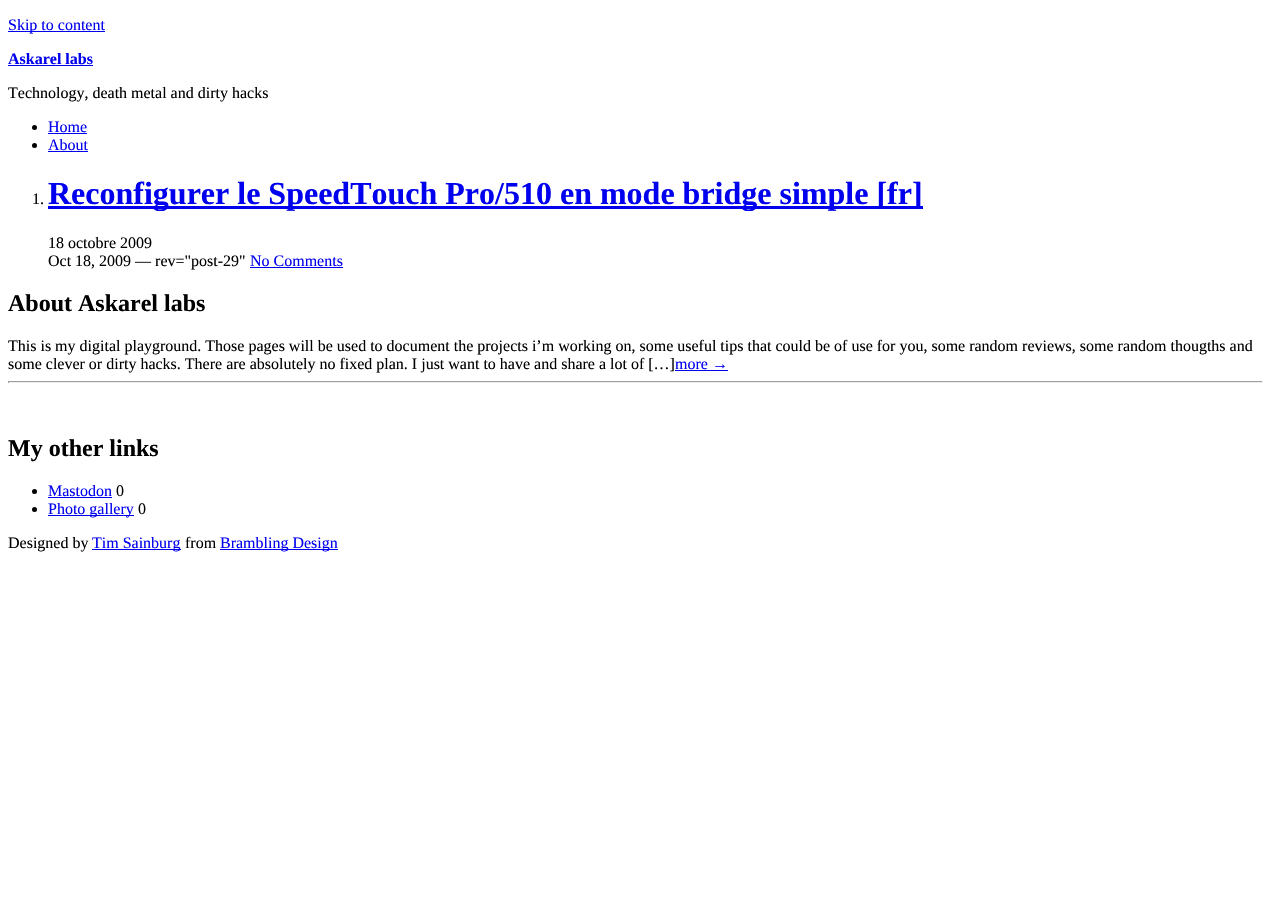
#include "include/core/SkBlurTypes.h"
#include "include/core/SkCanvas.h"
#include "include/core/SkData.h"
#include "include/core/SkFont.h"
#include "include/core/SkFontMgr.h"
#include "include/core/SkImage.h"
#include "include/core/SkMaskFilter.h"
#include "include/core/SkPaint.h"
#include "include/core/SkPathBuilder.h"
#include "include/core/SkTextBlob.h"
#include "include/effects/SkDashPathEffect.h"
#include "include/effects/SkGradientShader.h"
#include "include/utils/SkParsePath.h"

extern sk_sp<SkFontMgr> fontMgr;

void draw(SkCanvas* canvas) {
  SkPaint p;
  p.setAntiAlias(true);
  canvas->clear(SK_ColorWHITE);
  p.setColor(SkColorSetRGB(0, 0, 238));
  canvas->drawRect(SkRect::MakeLTRB(8, 31, 105, 32), p);
  canvas->drawRect(SkRect::MakeLTRB(8, 65, 93, 66), p);
  p.setColor(SK_ColorBLACK);
  canvas->drawCircle(34.5f, 127.5f, 2.5f, p);
  p.setColor(SkColorSetRGB(0, 0, 238));
  canvas->drawRect(SkRect::MakeLTRB(48, 133, 87, 134), p);
  p.setColor(SK_ColorBLACK);
  canvas->drawCircle(34.5f, 145.5f, 2.5f, p);
  p.setColor(SkColorSetRGB(0, 0, 238));
  canvas->drawRect(SkRect::MakeLTRB(48, 151, 88, 152), p);
  canvas->drawRect(SkRect::MakeLTRB(48, 206, 923, 209), p);
  canvas->drawRect(SkRect::MakeLTRB(250, 267, 343, 268), p);
  canvas->drawRect(SkRect::MakeLTRB(675, 370, 728, 371), p);
  p.setColor(SkColorSetRGB(159, 159, 159));
  canvas->drawRect(SkRect::MakeLTRB(8, 381, 1263, 382), p);
  p.setColor(SkColorSetRGB(238, 238, 238));
  canvas->drawRect(SkRect::MakeLTRB(1262, 381, 1263, 383), p);
  canvas->drawRect(SkRect::MakeLTRB(8, 382, 1263, 383), p);
  p.setColor(SkColorSetRGB(159, 159, 159));
  canvas->drawRect(SkRect::MakeLTRB(8, 381, 9, 383), p);
  p.setColor(SK_ColorBLACK);
  canvas->drawCircle(34.5f, 491.5f, 2.5f, p);
  p.setColor(SkColorSetRGB(0, 0, 238));
  canvas->drawRect(SkRect::MakeLTRB(48, 497, 112, 498), p);
  p.setColor(SK_ColorBLACK);
  canvas->drawCircle(34.5f, 509.5f, 2.5f, p);
  p.setColor(SkColorSetRGB(0, 0, 238));
  canvas->drawRect(SkRect::MakeLTRB(48, 515, 134, 516), p);
  canvas->drawRect(SkRect::MakeLTRB(92, 549, 181, 550), p);
  canvas->drawRect(SkRect::MakeLTRB(220, 549, 338, 550), p);
  SkFont font1(fontMgr->matchFamilyStyle("Liberation Serif", SkFontStyle::Normal()), 16);
  font1.setSubpixel(true);
  canvas->drawString("Skip to content", 8, 30, font1, p);
  SkFont font2(fontMgr->matchFamilyStyle("Liberation Serif", SkFontStyle::Bold()), 16);
  font2.setSubpixel(true);
  canvas->drawString("Askarel labs", 8, 64, font2, p);
  p.setColor(SK_ColorBLACK);
  canvas->drawString("Technology, death metal and dirty hacks", 8, 98, font1, p);
  p.setColor(SkColorSetRGB(0, 0, 238));
  canvas->drawString("Home", 48, 132, font1, p);
  canvas->drawString("About", 48, 150, font1, p);
  p.setColor(SK_ColorBLACK);
  canvas->drawString("1.", 32, 204, font1, p);
  SkFont font3(fontMgr->matchFamilyStyle("Liberation Serif", SkFontStyle::Bold()), 32);
  font3.setSubpixel(true);
  p.setColor(SkColorSetRGB(0, 0, 238));
  canvas->drawString("Reconfigurer le SpeedTouch Pro/510 en mode bridge simple [fr]", 48, 204, font3, p);
  p.setColor(SK_ColorBLACK);
  canvas->drawString("18 octobre 2009", 48, 248, font1, p);
  canvas->drawString("Oct 18, 2009 — rev=\"post-29\"", 48, 266, font1, p);
  p.setColor(SkColorSetRGB(0, 0, 238));
  canvas->drawString("No Comments", 250, 266, font1, p);
  SkFont font4(fontMgr->matchFamilyStyle("Liberation Serif", SkFontStyle::Bold()), 24);
  font4.setSubpixel(true);
  p.setColor(SK_ColorBLACK);
  canvas->drawString("About Askarel labs", 8, 311, font4, p);
  canvas->drawString("This is my digital playground. Those pages will be used to document the projects i’m working on, some useful tips that could be of use for you, some random reviews, some random thougths and", 8, 351, font1, p);
  canvas->drawString("some clever or dirty hacks. There are absolutely no fixed plan. I just want to have and share a lot of […]", 8, 369, font1, p);
  p.setColor(SkColorSetRGB(0, 0, 238));
  canvas->drawString("more →", 675, 369, font1, p);
  p.setColor(SK_ColorBLACK);
  canvas->drawString("My other links", 8, 456, font4, p);
  p.setColor(SkColorSetRGB(0, 0, 238));
  canvas->drawString("Mastodon", 48, 496, font1, p);
  p.setColor(SK_ColorBLACK);
  canvas->drawString("0", 116, 496, font1, p);
  p.setColor(SkColorSetRGB(0, 0, 238));
  canvas->drawString("Photo gallery", 48, 514, font1, p);
  p.setColor(SK_ColorBLACK);
  canvas->drawString("0", 138, 514, font1, p);
  canvas->drawString("Designed by", 8, 548, font1, p);
  p.setColor(SkColorSetRGB(0, 0, 238));
  canvas->drawString("Tim Sainburg", 92, 548, font1, p);
  p.setColor(SK_ColorBLACK);
  canvas->drawString("from", 185, 548, font1, p);
  p.setColor(SkColorSetRGB(0, 0, 238));
  canvas->drawString("Brambling Design", 220, 548, font1, p);
}
